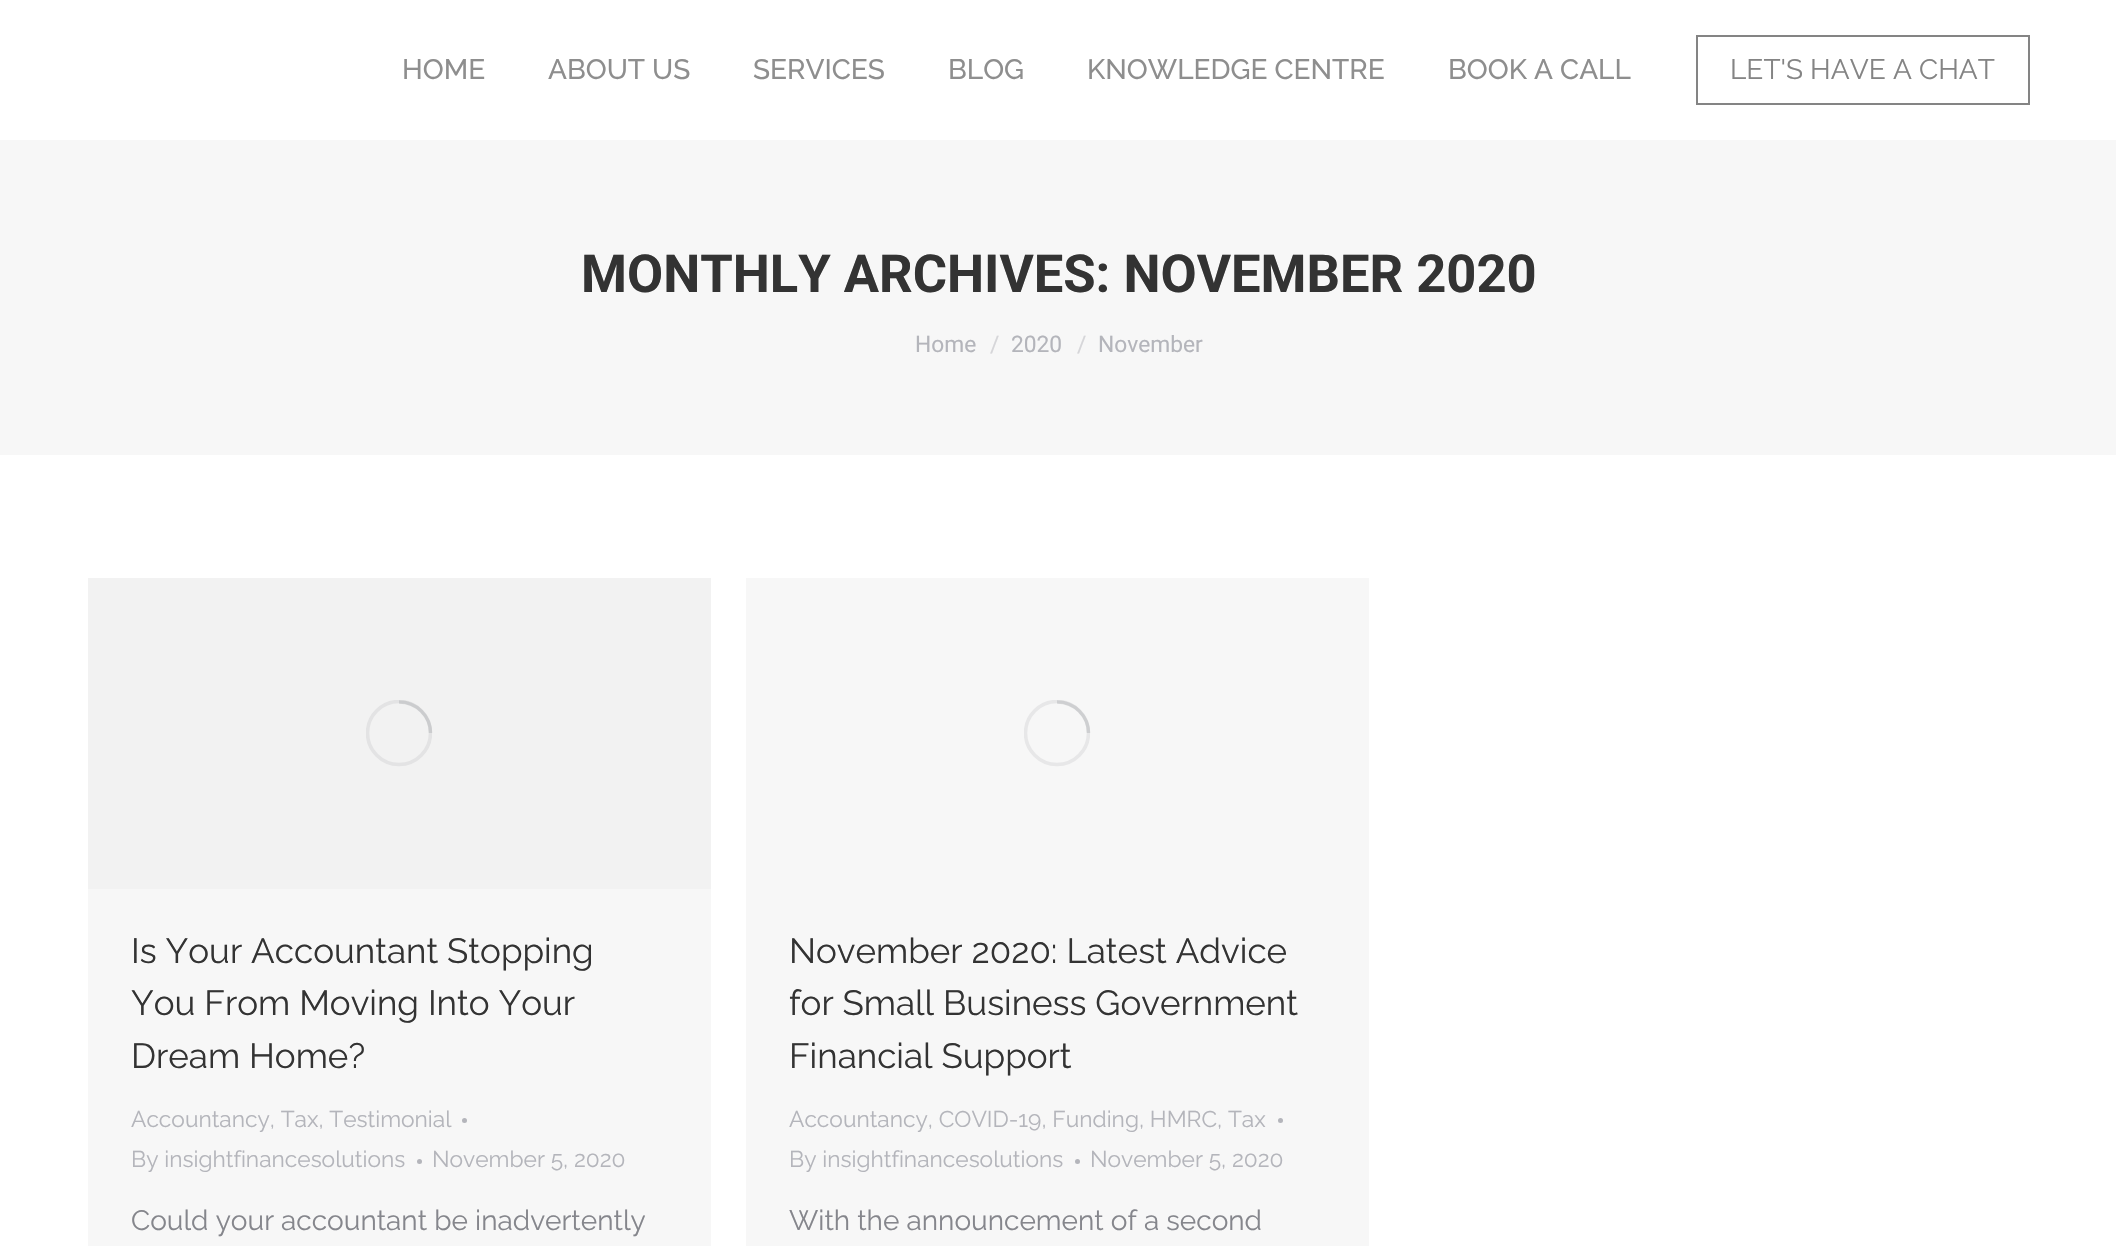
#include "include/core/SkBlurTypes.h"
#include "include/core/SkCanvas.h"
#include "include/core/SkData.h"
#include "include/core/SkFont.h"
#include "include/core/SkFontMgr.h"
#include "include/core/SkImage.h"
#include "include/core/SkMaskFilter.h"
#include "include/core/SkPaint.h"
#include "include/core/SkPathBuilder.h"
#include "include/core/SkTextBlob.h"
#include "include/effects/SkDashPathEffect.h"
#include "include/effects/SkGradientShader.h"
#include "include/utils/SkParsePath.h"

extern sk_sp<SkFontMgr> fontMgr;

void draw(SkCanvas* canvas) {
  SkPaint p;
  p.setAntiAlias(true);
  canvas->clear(SK_ColorWHITE);
  p.setStyle(SkPaint::kStroke_Style);
  p.setStrokeWidth(2);
  p.setColor(SkColorSetRGB(132, 132, 132));
  canvas->drawRect(SkRect::MakeLTRB(1697, 36, 2029, 104), p);
  p.setStyle(SkPaint::kFill_Style);
  p.setColor(SkColorSetRGB(247, 247, 247));
  canvas->drawRect(SkRect::MakeLTRB(0, 140, 2116, 455), p);
  canvas->drawRect(SkRect::MakeLTRB(88, 889, 711, 1246), p);
  p.setColor(SkColorSetRGB(242, 242, 242));
  canvas->drawRect(SkRect::MakeLTRB(88, 578, 711, 889), p);
  canvas->save();
  canvas->clipRect(SkRect::MakeLTRB(366, 700, 432, 767));
  p.setStyle(SkPaint::kStroke_Style);
  p.setStrokeWidth(3.5f);
  p.setColor(SkColorSetRGB(227, 227, 228));
  canvas->drawCircle(399, 733, 31.5f, p);
  canvas->restore();
  p.setColor(SkColorSetARGB(64, 133, 134, 140));
  canvas->drawPath(SkPathBuilder().moveTo(430.5f, 733).cubicTo(430.5f, 716, 416.5f, 702, 399, 702).detach(), p);
  p.setStyle(SkPaint::kFill_Style);
  p.setColor(SkColorSetRGB(180, 181, 187));
  canvas->drawCircle(464.5f, 1120.5f, 2.5f, p);
  canvas->drawCircle(419.5f, 1161.5f, 2.5f, p);
  p.setColor(SkColorSetRGB(247, 247, 247));
  canvas->drawRect(SkRect::MakeLTRB(746, 578, 1369, 1246), p);
  canvas->save();
  canvas->clipRect(SkRect::MakeLTRB(1024, 700, 1090, 767));
  p.setStyle(SkPaint::kStroke_Style);
  p.setColor(SkColorSetRGB(231, 231, 232));
  canvas->drawCircle(1057, 733, 31.5f, p);
  canvas->restore();
  p.setColor(SkColorSetARGB(64, 133, 134, 140));
  canvas->drawPath(SkPathBuilder().moveTo(1088.5f, 733).cubicTo(1088.5f, 716, 1074.5f, 702, 1057, 702).detach(), p);
  p.setStyle(SkPaint::kFill_Style);
  p.setColor(SkColorSetRGB(180, 181, 187));
  canvas->drawCircle(1280.5f, 1120.5f, 2.5f, p);
  canvas->drawCircle(1077.5f, 1161.5f, 2.5f, p);
  SkFont font1(fontMgr->matchFamilyStyle("Raleway", SkFontStyle(500, SkFontStyle::kNormal_Width, SkFontStyle::kUpright_Slant)), 28);
  font1.setSubpixel(true);
  p.setColor(SkColorSetRGB(142, 142, 142));
  canvas->drawString("HOME", 402, 79, font1, p);
  canvas->drawString("ABOUT US", 548, 79, font1, p);
  canvas->drawString("SERVICES", 753, 79, font1, p);
  canvas->drawString("BLOG", 948, 79, font1, p);
  canvas->drawString("KNOWLEDGE CENTRE", 1087, 79, font1, p);
  canvas->drawString("BOOK A CALL", 1448, 79, font1, p);
  SkFont font2(fontMgr->matchFamilyStyle("Raleway", SkFontStyle::Normal()), 28);
  font2.setSubpixel(true);
  p.setColor(SkColorSetRGB(132, 132, 132));
  canvas->drawString("LET'S HAVE A CHAT", 1730, 79, font2, p);
  SkFont font3(fontMgr->matchFamilyStyle("Roboto", SkFontStyle::Bold()), 52.5f);
  font3.setSubpixel(true);
  p.setColor(SkColorSetRGB(51, 51, 51));
  canvas->drawString("MONTHLY ARCHIVES: NOVEMBER 2020", 581, 292, font3, p);
  SkFont font4(fontMgr->matchFamilyStyle("Roboto", SkFontStyle::Normal()), 22.75f);
  font4.setSubpixel(true);
  p.setColor(SkColorSetRGB(180, 181, 187));
  canvas->drawString("Home", 915, 352, font4, p);
  p.setColor(SkColorSetRGB(214, 214, 217));
  canvas->drawString("/", 990, 352, font4, p);
  p.setColor(SkColorSetRGB(180, 181, 187));
  canvas->drawString("2020", 1011, 352, font4, p);
  p.setColor(SkColorSetRGB(214, 214, 217));
  canvas->drawString("/", 1077, 352, font4, p);
  p.setColor(SkColorSetRGB(180, 181, 187));
  canvas->drawString("November", 1098, 352, font4, p);
  SkFont font5(fontMgr->matchFamilyStyle("Raleway", SkFontStyle::Normal()), 35);
  font5.setSubpixel(true);
  p.setColor(SkColorSetRGB(51, 51, 51));
  canvas->drawString("Is Your Accountant Stopping", 131, 963, font5, p);
  canvas->drawString("You From Moving Into Your", 131, 1015, font5, p);
  canvas->drawString("Dream Home?", 131, 1068, font5, p);
  SkFont font6(fontMgr->matchFamilyStyle("Raleway", SkFontStyle::Normal()), 22.75f);
  font6.setSubpixel(true);
  p.setColor(SkColorSetRGB(180, 181, 187));
  canvas->drawString("Accountancy, Tax, Testimonial", 131, 1127, font6, p);
  canvas->drawString("By insightfinancesolutions", 131, 1167, font6, p);
  canvas->drawString("November 5, 2020", 432, 1167, font6, p);
  p.setColor(SkColorSetRGB(133, 134, 140));
  canvas->drawString("Could your accountant be inadvertently", 131, 1230, font2, p);
  p.setColor(SkColorSetRGB(51, 51, 51));
  canvas->drawString("November 2020: Latest Advice", 789, 963, font5, p);
  canvas->drawString("for Small Business Government", 789, 1015, font5, p);
  canvas->drawString("Financial Support", 789, 1068, font5, p);
  p.setColor(SkColorSetRGB(180, 181, 187));
  canvas->drawString("Accountancy, COVID-19, Funding, HMRC, Tax", 789, 1127, font6, p);
  canvas->drawString("By insightfinancesolutions", 789, 1167, font6, p);
  canvas->drawString("November 5, 2020", 1090, 1167, font6, p);
  p.setColor(SkColorSetRGB(133, 134, 140));
  canvas->drawString("With the announcement of a second", 789, 1230, font2, p);
}
